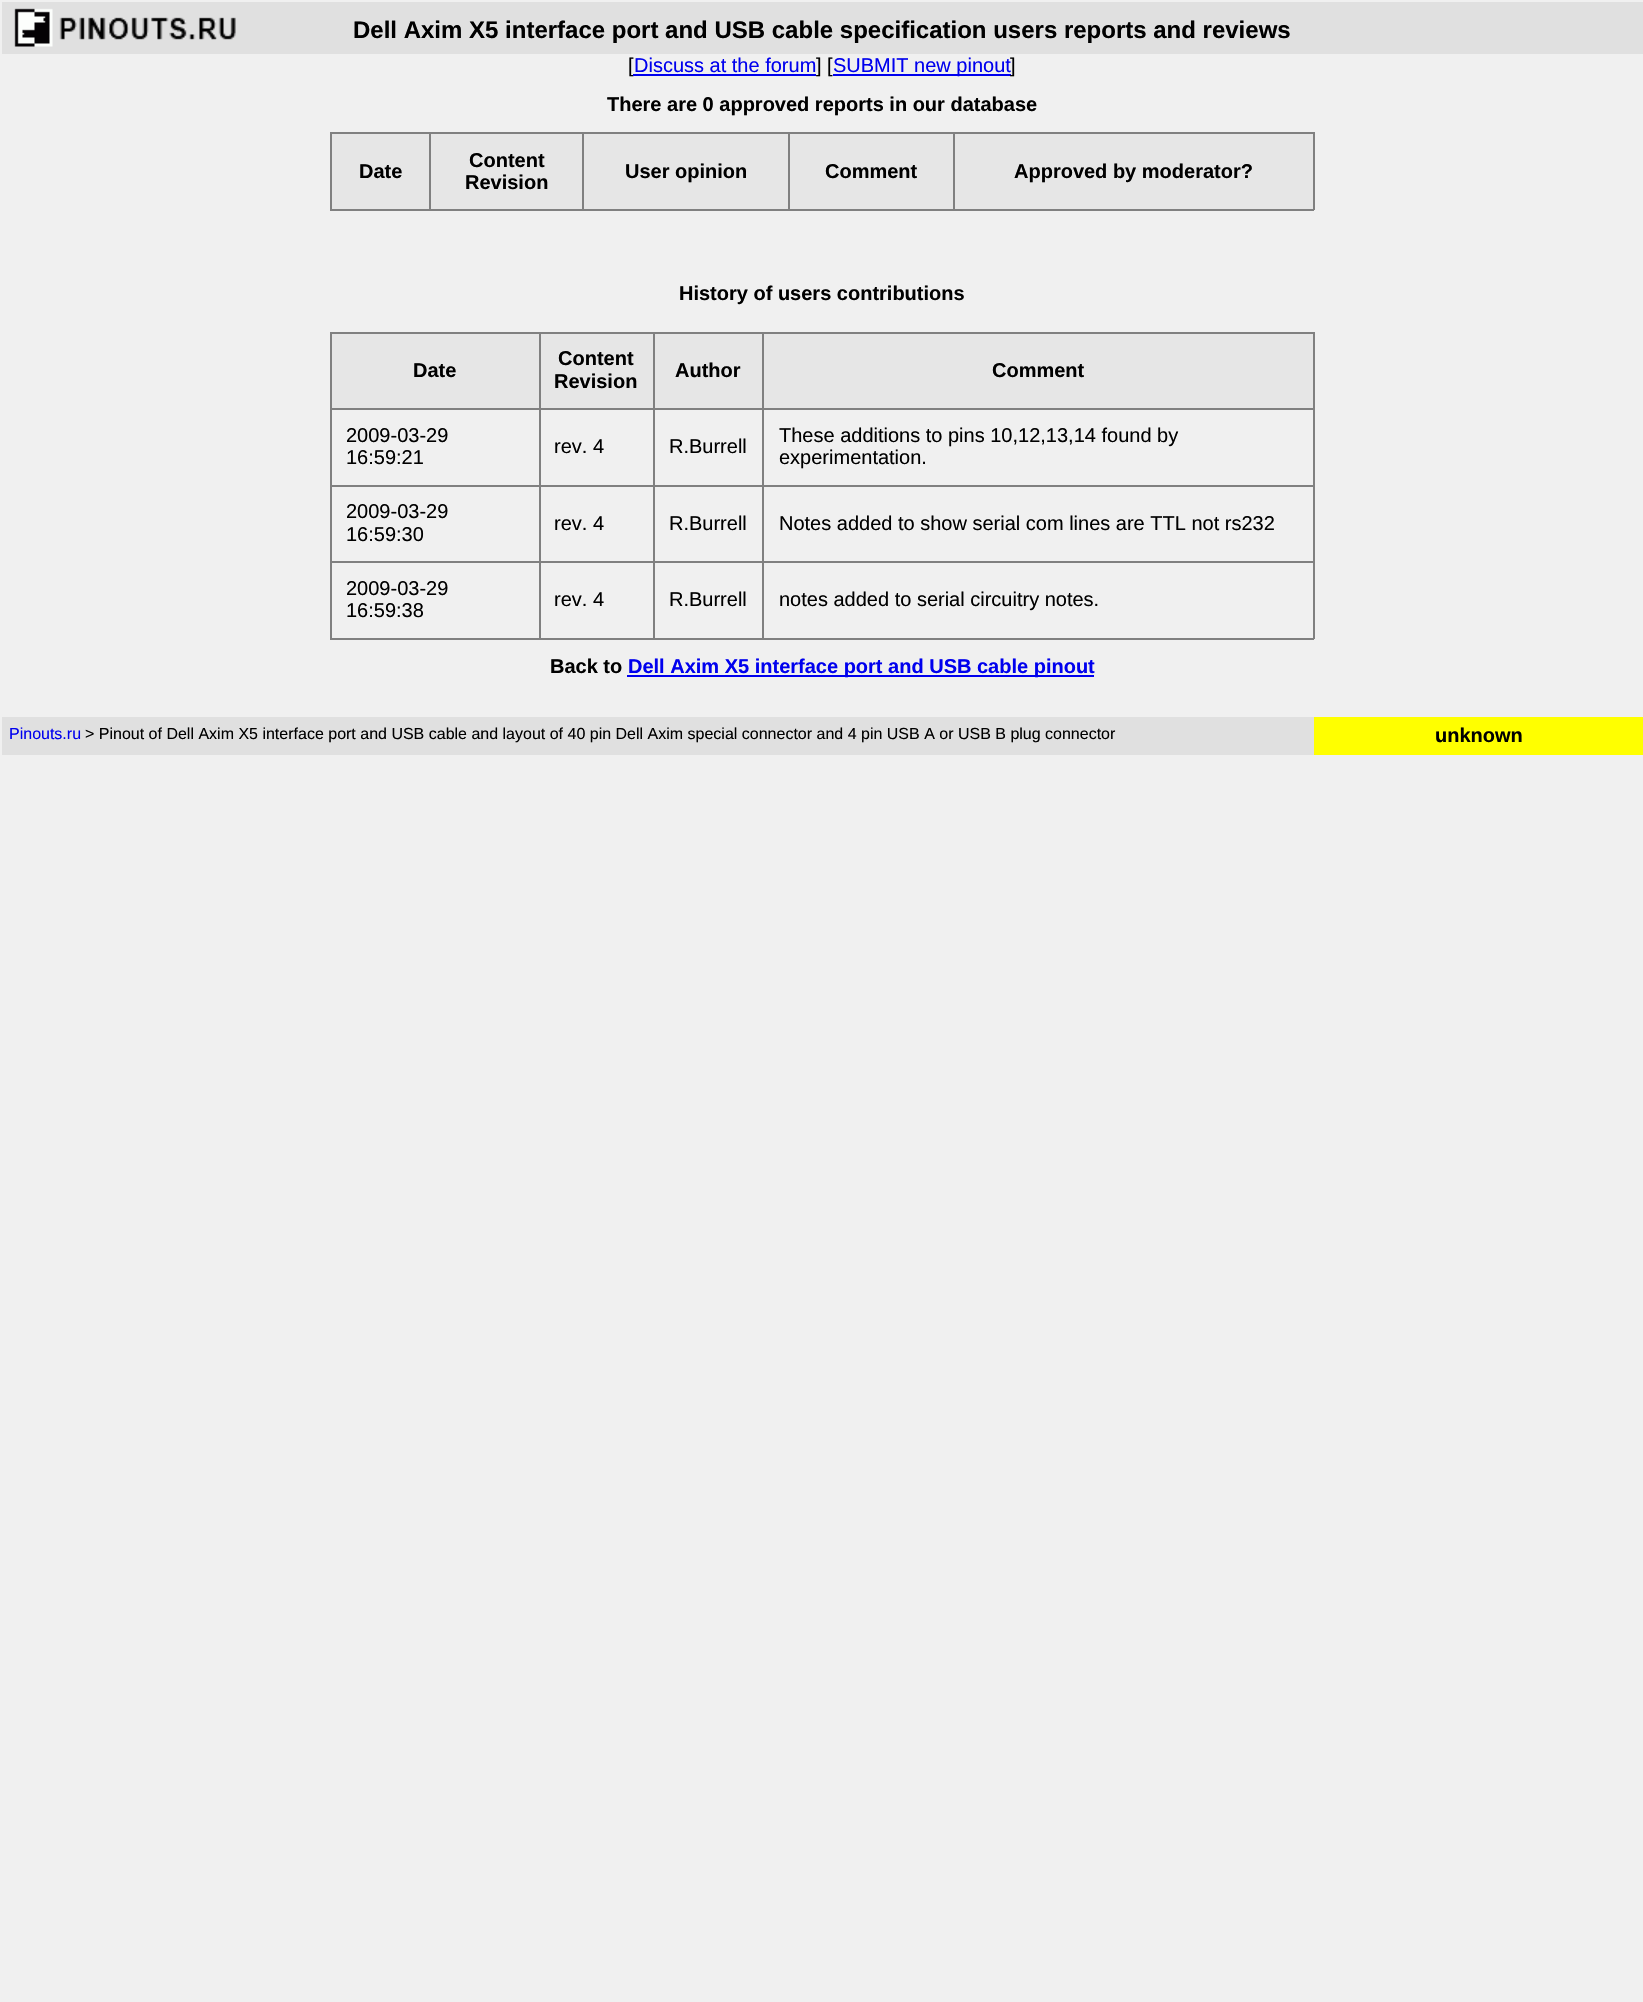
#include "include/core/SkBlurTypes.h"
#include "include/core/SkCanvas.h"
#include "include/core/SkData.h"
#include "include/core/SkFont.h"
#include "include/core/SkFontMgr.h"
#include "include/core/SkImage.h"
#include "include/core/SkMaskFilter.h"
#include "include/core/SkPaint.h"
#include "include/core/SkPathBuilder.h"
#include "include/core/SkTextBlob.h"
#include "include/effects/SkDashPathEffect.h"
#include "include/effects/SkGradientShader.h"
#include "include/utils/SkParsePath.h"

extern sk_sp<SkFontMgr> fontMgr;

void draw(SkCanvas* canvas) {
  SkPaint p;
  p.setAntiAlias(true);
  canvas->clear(SkColorSetRGB(240, 240, 240));
  p.setColor(SkColorSetRGB(224, 224, 224));
  canvas->drawRect(SkRect::MakeLTRB(2, 2, 1643, 54), p);
  canvas->drawImageRect(SkImages::DeferredFromEncodedData(SkData::MakeFromFileName("images/1.png")), SkRect::MakeLTRB(14, 8, 236, 47), SkSamplingOptions());
  p.setColor(SkColorSetRGB(0, 0, 238));
  canvas->drawRect(SkRect::MakeLTRB(833, 74, 1011, 76), p);
  p.setColor(SkColorSetRGB(230, 230, 230));
  canvas->drawRect(SkRect::MakeLTRB(332, 134, 429, 209), p);
  p.setColor(SkColorSetRGB(128, 128, 128));
  canvas->drawRect(SkRect::MakeLTRB(953, 132, 1314, 134), p);
  canvas->drawRect(SkRect::MakeLTRB(1313, 132, 1315, 210), p);
  canvas->drawRect(SkRect::MakeLTRB(953, 209, 1314, 211), p);
  canvas->drawRect(SkRect::MakeLTRB(953, 132, 955, 210), p);
  canvas->drawRect(SkRect::MakeLTRB(788, 132, 954, 134), p);
  canvas->drawRect(SkRect::MakeLTRB(788, 209, 954, 211), p);
  canvas->drawRect(SkRect::MakeLTRB(788, 132, 790, 210), p);
  canvas->drawRect(SkRect::MakeLTRB(582, 132, 789, 134), p);
  canvas->drawRect(SkRect::MakeLTRB(582, 209, 789, 211), p);
  canvas->drawRect(SkRect::MakeLTRB(582, 132, 584, 210), p);
  canvas->drawRect(SkRect::MakeLTRB(429, 132, 584, 134), p);
  canvas->drawRect(SkRect::MakeLTRB(429, 209, 584, 211), p);
  canvas->drawRect(SkRect::MakeLTRB(429, 132, 431, 210), p);
  canvas->drawRect(SkRect::MakeLTRB(330, 132, 431, 134), p);
  canvas->drawRect(SkRect::MakeLTRB(330, 209, 431, 211), p);
  canvas->drawRect(SkRect::MakeLTRB(330, 132, 332, 210), p);
  p.setColor(SkColorSetRGB(230, 230, 230));
  canvas->drawRect(SkRect::MakeLTRB(431, 134, 582, 209), p);
  canvas->drawRect(SkRect::MakeLTRB(584, 134, 788, 209), p);
  canvas->drawRect(SkRect::MakeLTRB(790, 134, 953, 209), p);
  canvas->drawRect(SkRect::MakeLTRB(955, 134, 1313, 209), p);
  canvas->drawRect(SkRect::MakeLTRB(332, 334, 539, 408), p);
  p.setColor(SkColorSetRGB(128, 128, 128));
  canvas->drawRect(SkRect::MakeLTRB(762, 332, 1314, 334), p);
  canvas->drawRect(SkRect::MakeLTRB(762, 408, 1314, 410), p);
  canvas->drawRect(SkRect::MakeLTRB(762, 485, 1314, 487), p);
  canvas->drawRect(SkRect::MakeLTRB(762, 561, 1314, 563), p);
  canvas->drawRect(SkRect::MakeLTRB(1313, 561, 1315, 639), p);
  canvas->drawRect(SkRect::MakeLTRB(762, 638, 1314, 640), p);
  canvas->drawRect(SkRect::MakeLTRB(762, 561, 764, 639), p);
  canvas->drawRect(SkRect::MakeLTRB(653, 561, 764, 563), p);
  canvas->drawRect(SkRect::MakeLTRB(762, 485, 764, 563), p);
  canvas->drawRect(SkRect::MakeLTRB(653, 485, 764, 487), p);
  canvas->drawRect(SkRect::MakeLTRB(762, 408, 764, 486), p);
  canvas->drawRect(SkRect::MakeLTRB(653, 408, 764, 410), p);
  canvas->drawRect(SkRect::MakeLTRB(762, 332, 764, 410), p);
  canvas->drawRect(SkRect::MakeLTRB(653, 332, 764, 334), p);
  canvas->drawRect(SkRect::MakeLTRB(653, 638, 764, 640), p);
  canvas->drawRect(SkRect::MakeLTRB(653, 561, 655, 639), p);
  canvas->drawRect(SkRect::MakeLTRB(539, 561, 654, 563), p);
  canvas->drawRect(SkRect::MakeLTRB(653, 485, 655, 563), p);
  canvas->drawRect(SkRect::MakeLTRB(539, 485, 654, 487), p);
  canvas->drawRect(SkRect::MakeLTRB(653, 408, 655, 486), p);
  canvas->drawRect(SkRect::MakeLTRB(539, 408, 654, 410), p);
  canvas->drawRect(SkRect::MakeLTRB(653, 332, 655, 410), p);
  canvas->drawRect(SkRect::MakeLTRB(539, 332, 654, 334), p);
  canvas->drawRect(SkRect::MakeLTRB(539, 638, 654, 640), p);
  canvas->drawRect(SkRect::MakeLTRB(539, 561, 541, 639), p);
  canvas->drawRect(SkRect::MakeLTRB(330, 561, 540, 563), p);
  canvas->drawRect(SkRect::MakeLTRB(539, 485, 541, 563), p);
  canvas->drawRect(SkRect::MakeLTRB(330, 485, 540, 487), p);
  canvas->drawRect(SkRect::MakeLTRB(539, 408, 541, 486), p);
  canvas->drawRect(SkRect::MakeLTRB(330, 408, 540, 410), p);
  canvas->drawRect(SkRect::MakeLTRB(539, 332, 541, 410), p);
  canvas->drawRect(SkRect::MakeLTRB(330, 332, 540, 334), p);
  canvas->drawRect(SkRect::MakeLTRB(330, 638, 540, 640), p);
  canvas->drawRect(SkRect::MakeLTRB(330, 561, 332, 639), p);
  canvas->drawRect(SkRect::MakeLTRB(330, 485, 332, 563), p);
  canvas->drawRect(SkRect::MakeLTRB(330, 408, 332, 486), p);
  canvas->drawRect(SkRect::MakeLTRB(330, 332, 332, 410), p);
  p.setColor(SkColorSetRGB(230, 230, 230));
  canvas->drawRect(SkRect::MakeLTRB(541, 334, 653, 408), p);
  canvas->drawRect(SkRect::MakeLTRB(655, 334, 762, 408), p);
  canvas->drawRect(SkRect::MakeLTRB(764, 334, 1313, 408), p);
  p.setColor(SkColorSetRGB(128, 128, 128));
  canvas->drawRect(SkRect::MakeLTRB(1313, 485, 1315, 563), p);
  canvas->drawRect(SkRect::MakeLTRB(1313, 408, 1315, 486), p);
  canvas->drawRect(SkRect::MakeLTRB(1313, 332, 1315, 410), p);
  p.setColor(SkColorSetRGB(0, 0, 238));
  canvas->drawRect(SkRect::MakeLTRB(627, 675, 1094, 677), p);
  p.setColor(SkColorSetRGB(224, 224, 224));
  canvas->drawRect(SkRect::MakeLTRB(2, 717, 1314, 755), p);
  p.setColor(SkColorSetRGB(255, 255, 0));
  canvas->drawRect(SkRect::MakeLTRB(1314, 717, 1643, 755), p);
  SkFont font1(fontMgr->matchFamilyStyle("Liberation Sans", SkFontStyle::Bold()), 24);
  font1.setSubpixel(true);
  p.setColor(SK_ColorBLACK);
  canvas->drawString("Dell Axim X5 interface port and USB cable specification users reports and reviews", 353, 38, font1, p);
  SkFont font2(fontMgr->matchFamilyStyle("Liberation Sans", SkFontStyle::Normal()), 20);
  font2.setSubpixel(true);
  canvas->drawString("[", 628, 72, font2, p);
  p.setColor(SkColorSetRGB(0, 0, 238));
  canvas->drawString("Discuss at the forum", 634, 72, font2, p);
  canvas->drawRect(SkRect::MakeLTRB(633, 74, 816, 76), p);
  p.setColor(SK_ColorBLACK);
  canvas->drawString("] [", 816, 72, font2, p);
  p.setColor(SkColorSetRGB(0, 0, 238));
  canvas->drawString("SUBMIT new pinout", 833, 72, font2, p);
  p.setColor(SK_ColorBLACK);
  canvas->drawString("]", 1010, 72, font2, p);
  SkFont font3(fontMgr->matchFamilyStyle("Liberation Sans", SkFontStyle::Bold()), 20);
  font3.setSubpixel(true);
  canvas->drawString("There are 0 approved reports in our database", 607, 111, font3, p);
  canvas->drawString("Date", 359, 178, font3, p);
  canvas->drawString("Content", 469, 167, font3, p);
  canvas->drawString("Revision", 465, 189, font3, p);
  canvas->drawString("User opinion", 625, 178, font3, p);
  canvas->drawString("Comment", 825, 178, font3, p);
  canvas->drawString("Approved by moderator?", 1014, 178, font3, p);
  canvas->drawString("History of users contributions", 679, 300, font3, p);
  canvas->drawString("Date", 413, 377, font3, p);
  canvas->drawString("Content", 558, 365, font3, p);
  canvas->drawString("Revision", 554, 388, font3, p);
  canvas->drawString("Author", 675, 377, font3, p);
  canvas->drawString("Comment", 992, 377, font3, p);
  canvas->drawString("2009-03-29", 346, 442, font2, p);
  canvas->drawString("16:59:21", 346, 464, font2, p);
  canvas->drawString("rev. 4", 554, 453, font2, p);
  canvas->drawString("R.Burrell", 669, 453, font2, p);
  canvas->drawString("These additions to pins 10,12,13,14 found by", 779, 442, font2, p);
  canvas->drawString("experimentation.", 779, 464, font2, p);
  canvas->drawString("2009-03-29", 346, 518, font2, p);
  canvas->drawString("16:59:30", 346, 541, font2, p);
  canvas->drawString("rev. 4", 554, 530, font2, p);
  canvas->drawString("R.Burrell", 669, 530, font2, p);
  canvas->drawString("Notes added to show serial com lines are TTL not rs232", 779, 530, font2, p);
  canvas->drawString("2009-03-29", 346, 595, font2, p);
  canvas->drawString("16:59:38", 346, 617, font2, p);
  canvas->drawString("rev. 4", 554, 606, font2, p);
  canvas->drawString("R.Burrell", 669, 606, font2, p);
  canvas->drawString("notes added to serial circuitry notes.", 779, 606, font2, p);
  canvas->drawString("Back to", 550, 673, font3, p);
  p.setColor(SkColorSetRGB(0, 0, 238));
  canvas->drawString("Dell Axim X5 interface port and USB cable pinout", 628, 673, font3, p);
  SkFont font4(fontMgr->matchFamilyStyle("Liberation Sans", SkFontStyle::Normal()), 16);
  font4.setSubpixel(true);
  canvas->drawString("Pinouts.ru", 9, 739, font4, p);
  p.setColor(SK_ColorBLACK);
  canvas->drawString("> Pinout of Dell Axim X5 interface port and USB cable and layout of 40 pin Dell Axim special connector and 4 pin USB A or USB B plug connector", 85, 739, font4, p);
  canvas->drawString("unknown", 1435, 742, font3, p);
}
